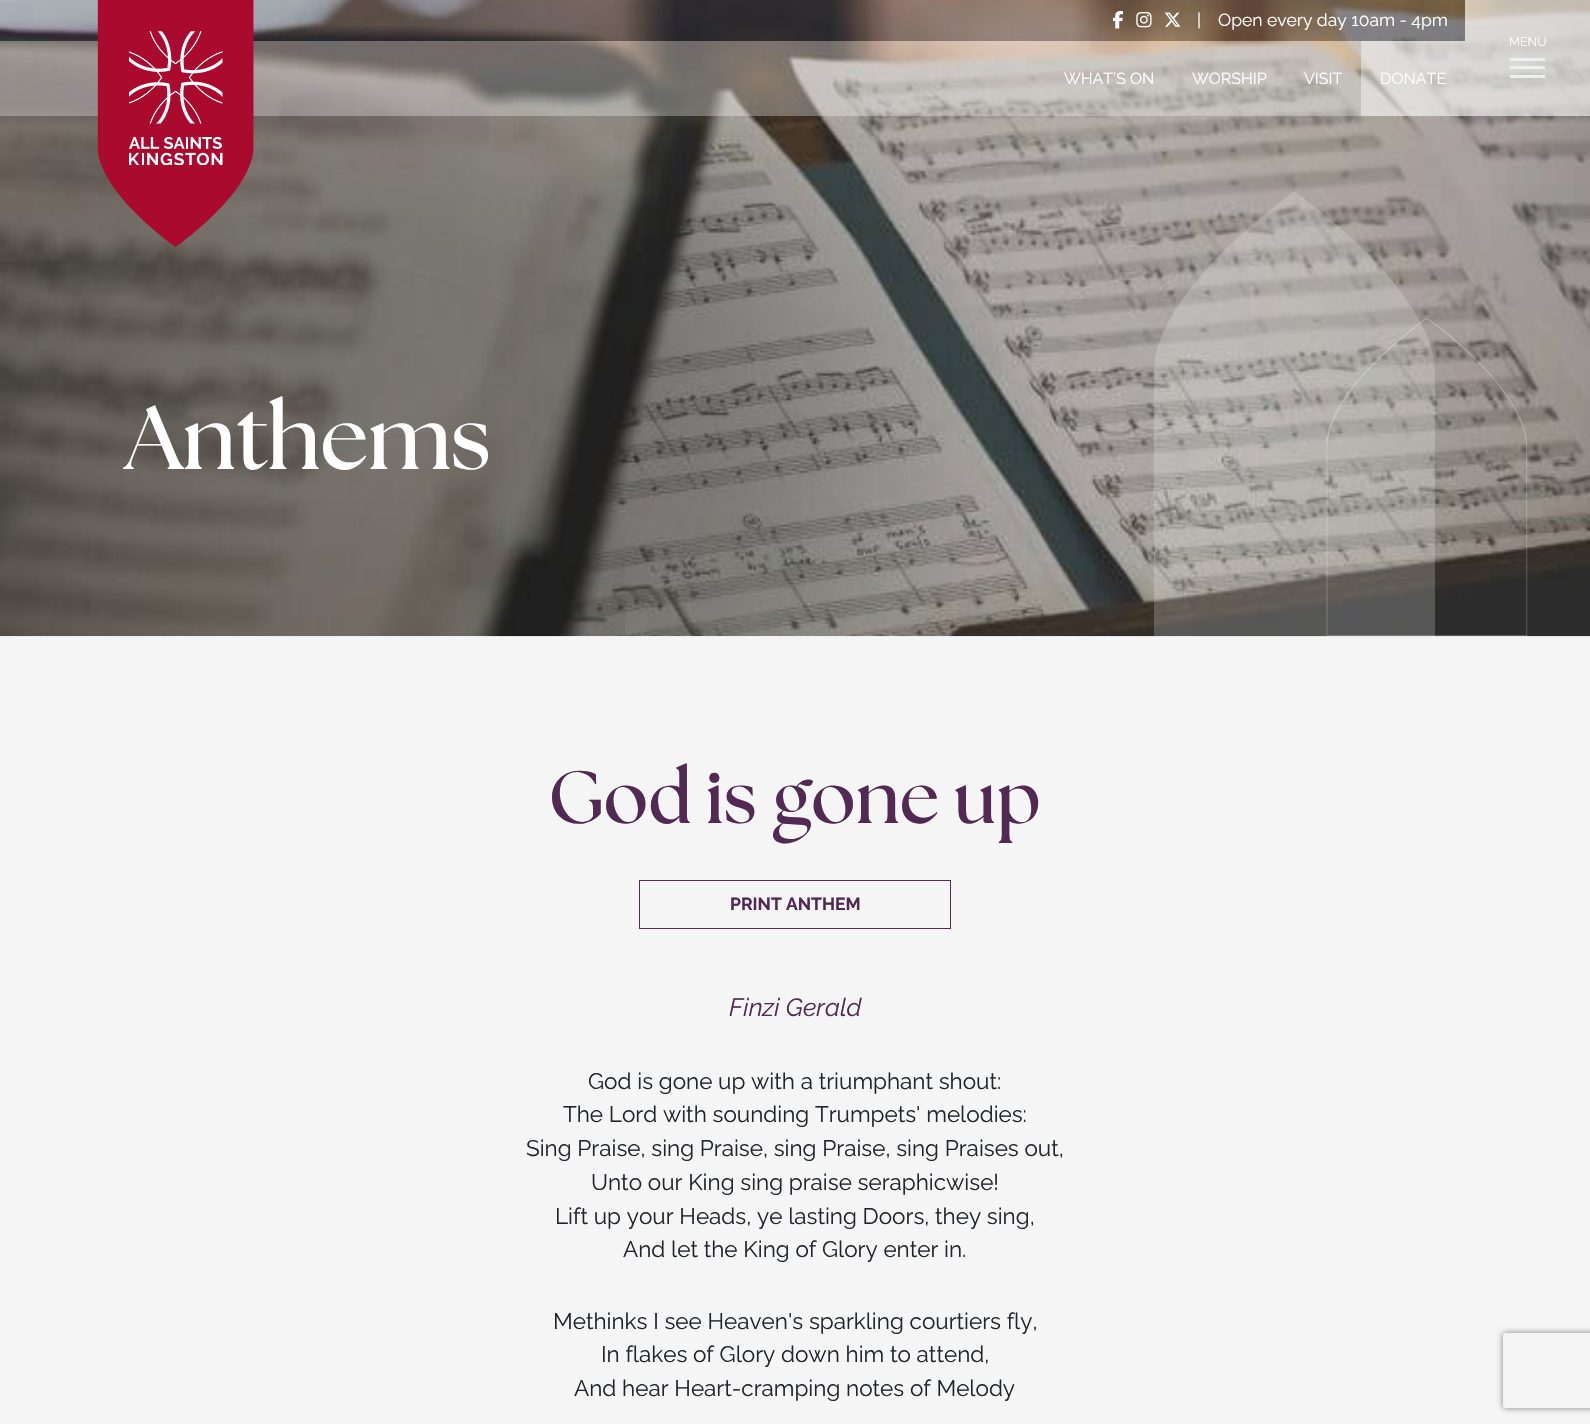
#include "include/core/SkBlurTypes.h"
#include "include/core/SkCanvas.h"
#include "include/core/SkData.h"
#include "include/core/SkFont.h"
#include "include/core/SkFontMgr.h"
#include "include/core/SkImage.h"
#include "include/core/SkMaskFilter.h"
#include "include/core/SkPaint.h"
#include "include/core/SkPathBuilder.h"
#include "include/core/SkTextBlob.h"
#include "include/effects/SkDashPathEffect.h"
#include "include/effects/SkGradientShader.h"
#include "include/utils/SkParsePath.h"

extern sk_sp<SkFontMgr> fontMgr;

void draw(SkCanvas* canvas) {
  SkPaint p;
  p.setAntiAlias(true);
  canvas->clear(SkColorSetRGB(245, 245, 245));
  canvas->drawImageRect(SkImages::DeferredFromEncodedData(SkData::MakeFromFileName("images/6.png")), SkRect::MakeLTRB(0, 0, 1590, 637), SkSamplingOptions());
  p.setStyle(SkPaint::kStroke_Style);
  p.setStrokeWidth(1);
  p.setColor(SkColorSetRGB(81, 41, 83));
  canvas->drawRect(SkRect::MakeLTRB(639.5f, 880.5f, 950.5f, 928.5f), p);
  canvas->save();
  canvas->clipRect(SkRect::MakeLTRB(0, 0, 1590, 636));
  canvas->clipPath(SkPathBuilder(SkPathFillType::kEvenOdd).moveTo(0, 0).lineTo(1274, 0).lineTo(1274, 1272).lineTo(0, 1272).close().moveTo(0, 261).lineTo(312.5f, 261).cubicTo(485, 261, 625, 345, 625, 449).lineTo(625, 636).lineTo(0, 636).close().detach(), true);
  p.setStyle(SkPaint::kFill_Style);
  p.setColor(SkColorSetARGB(77, 0, 0, 0));
  p.setMaskFilter(SkMaskFilter::MakeBlur(kNormal_SkBlurStyle, 124));
  canvas->drawRoundRect(SkRect::MakeLTRB(-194, 54, 901, 899), 422.5f, 422.5f, p);
  p.setMaskFilter(nullptr);
  canvas->restore();
  p.setColor(SkColorSetARGB(77, 18, 30, 53));
  canvas->drawRect(SkRect::MakeLTRB(0, 0, 1465, 41), p);
  p.setColor(SkColorSetARGB(77, 255, 255, 255));
  canvas->drawRect(SkRect::MakeLTRB(0, 41, 1046, 116), p);
  canvas->drawImageRect(SkImages::DeferredFromEncodedData(SkData::MakeFromFileName("images/1.png")), SkRect::MakeLTRB(97, 0, 254, 247), SkSamplingOptions());
  canvas->drawImageRect(SkImages::DeferredFromEncodedData(SkData::MakeFromFileName("images/2.png")), SkRect::MakeLTRB(129, 31, 223, 165), SkSamplingOptions());
  canvas->drawImageRect(SkImages::DeferredFromEncodedData(SkData::MakeFromFileName("images/3.png")), SkRect::MakeLTRB(1112, 10, 1123, 29), SkSamplingOptions());
  canvas->drawImageRect(SkImages::DeferredFromEncodedData(SkData::MakeFromFileName("images/4.png")), SkRect::MakeLTRB(1136, 12, 1152, 28), SkSamplingOptions());
  canvas->drawImageRect(SkImages::DeferredFromEncodedData(SkData::MakeFromFileName("images/5.png")), SkRect::MakeLTRB(1164, 12, 1181, 27), SkSamplingOptions());
  canvas->drawRect(SkRect::MakeLTRB(1046, 41, 1174, 116), p);
  canvas->drawRect(SkRect::MakeLTRB(1174, 41, 1285, 116), p);
  canvas->drawRect(SkRect::MakeLTRB(1285, 41, 1361, 116), p);
  p.setColor(SkColorSetARGB(153, 255, 255, 255));
  canvas->drawRect(SkRect::MakeLTRB(1361, 41, 1465, 116), p);
  canvas->drawRect(SkRect::MakeLTRB(1465, 0, 1590, 116), p);
  p.setColor(SkColorSetRGB(236, 240, 241));
  canvas->drawRect(SkRect::MakeLTRB(1510, 58, 1545, 61), p);
  canvas->drawRect(SkRect::MakeLTRB(1510, 66, 1545, 69), p);
  canvas->drawRect(SkRect::MakeLTRB(1510, 75, 1545, 78), p);
  p.setColor(SkColorSetARGB(77, 0, 0, 0));
  canvas->drawPath(SkPathBuilder().moveTo(0, 261).lineTo(312, 261).cubicTo(485, 261, 625, 345, 625, 449).lineTo(625, 636).lineTo(0, 636).close().detach(), p);
  canvas->drawImageRect(SkImages::DeferredFromEncodedData(SkData::MakeFromFileName("images/8.png")), SkRect::MakeLTRB(1326, 318, 1528, 636), SkSamplingOptions());
  canvas->drawImageRect(SkImages::DeferredFromEncodedData(SkData::MakeFromFileName("images/7.png")), SkRect::MakeLTRB(1154, 191, 1435, 636), SkSamplingOptions());
  canvas->save();
  canvas->clipPath(SkPathBuilder(SkPathFillType::kEvenOdd).moveTo(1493, 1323).lineTo(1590, 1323).lineTo(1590, 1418).lineTo(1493, 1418).close().moveTo(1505.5f, 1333).lineTo(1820.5f, 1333).cubicTo(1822, 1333, 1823, 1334, 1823, 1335.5f).lineTo(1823, 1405.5f).cubicTo(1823, 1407, 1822, 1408, 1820.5f, 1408).lineTo(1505.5f, 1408).cubicTo(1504, 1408, 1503, 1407, 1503, 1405.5f).lineTo(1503, 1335.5f).cubicTo(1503, 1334, 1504, 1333, 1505.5f, 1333).close().detach(), true);
  p.setColor(SkColorSetRGB(128, 128, 128));
  p.setMaskFilter(SkMaskFilter::MakeBlur(kNormal_SkBlurStyle, 3));
  canvas->drawRoundRect(SkRect::MakeLTRB(1503, 1333, 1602, 1408), 2.5f, 2.5f, p);
  p.setMaskFilter(nullptr);
  canvas->restore();
  SkFont font1(fontMgr->matchFamilyStyle("Raleway", SkFontStyle::Normal()), 17.5f);
  font1.setSubpixel(true);
  p.setColor(SK_ColorWHITE);
  canvas->drawString("|", 1197, 26, font1, p);
  canvas->drawString("Open every day 10am - 4pm", 1218, 26, font1, p);
  SkFont font2(fontMgr->matchFamilyStyle("Raleway", SkFontStyle::Normal()), 16);
  font2.setSubpixel(true);
  canvas->drawString("WHAT’S ON", 1064, 84, font2, p);
  canvas->drawString("WORSHIP", 1192, 84, font2, p);
  canvas->drawString("VISIT", 1304, 84, font2, p);
  canvas->drawString("DONATE", 1380, 84, font2, p);
  SkFont font3(fontMgr->matchFamilyStyle("Raleway", SkFontStyle::Normal()), 12.5f);
  font3.setSubpixel(true);
  canvas->drawString("MENU", 1509, 46, font3, p);
  SkFont font4(fontMgr->matchFamilyStyle("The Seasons", SkFontStyle::Bold()), 90);
  font4.setSubpixel(true);
  canvas->drawString("Anthems", 125, 469, font4, p);
  SkFont font5(fontMgr->matchFamilyStyle("The Seasons", SkFontStyle::Bold()), 74);
  font5.setSubpixel(true);
  p.setColor(SkColorSetRGB(81, 41, 83));
  canvas->drawString("God is gone up", 548, 823, font5, p);
  SkFont font6(fontMgr->matchFamilyStyle("Raleway", SkFontStyle::Bold()), 17.5f);
  font6.setSubpixel(true);
  canvas->drawString("PRINT ANTHEM", 730, 910, font6, p);
  SkFont font7(fontMgr->matchFamilyStyle("Raleway", SkFontStyle::Italic()), 25);
  font7.setSubpixel(true);
  canvas->drawString("Finzi Gerald", 729, 1016, font7, p);
  SkFont font8(fontMgr->matchFamilyStyle("Raleway", SkFontStyle::Normal()), 22.5f);
  font8.setSubpixel(true);
  p.setColor(SkColorSetRGB(33, 37, 41));
  canvas->drawString("God is gone up with a triumphant shout:", 588, 1089, font8, p);
  canvas->drawString("The Lord with sounding Trumpets' melodies:", 563, 1122, font8, p);
  canvas->drawString("Sing Praise, sing Praise, sing Praise, sing Praises out,", 526, 1156, font8, p);
  canvas->drawString("Unto our King sing praise seraphicwise!", 591, 1190, font8, p);
  canvas->drawString("Lift up your Heads, ye lasting Doors, they sing,", 555, 1224, font8, p);
  canvas->drawString("And let the King of Glory enter in.", 623, 1257, font8, p);
  canvas->drawString("Methinks I see Heaven's sparkling courtiers fly,", 553, 1329, font8, p);
  canvas->drawString("In flakes of Glory down him to attend,", 601, 1362, font8, p);
  canvas->drawString("And hear Heart-cramping notes of Melody", 574, 1396, font8, p);
}
